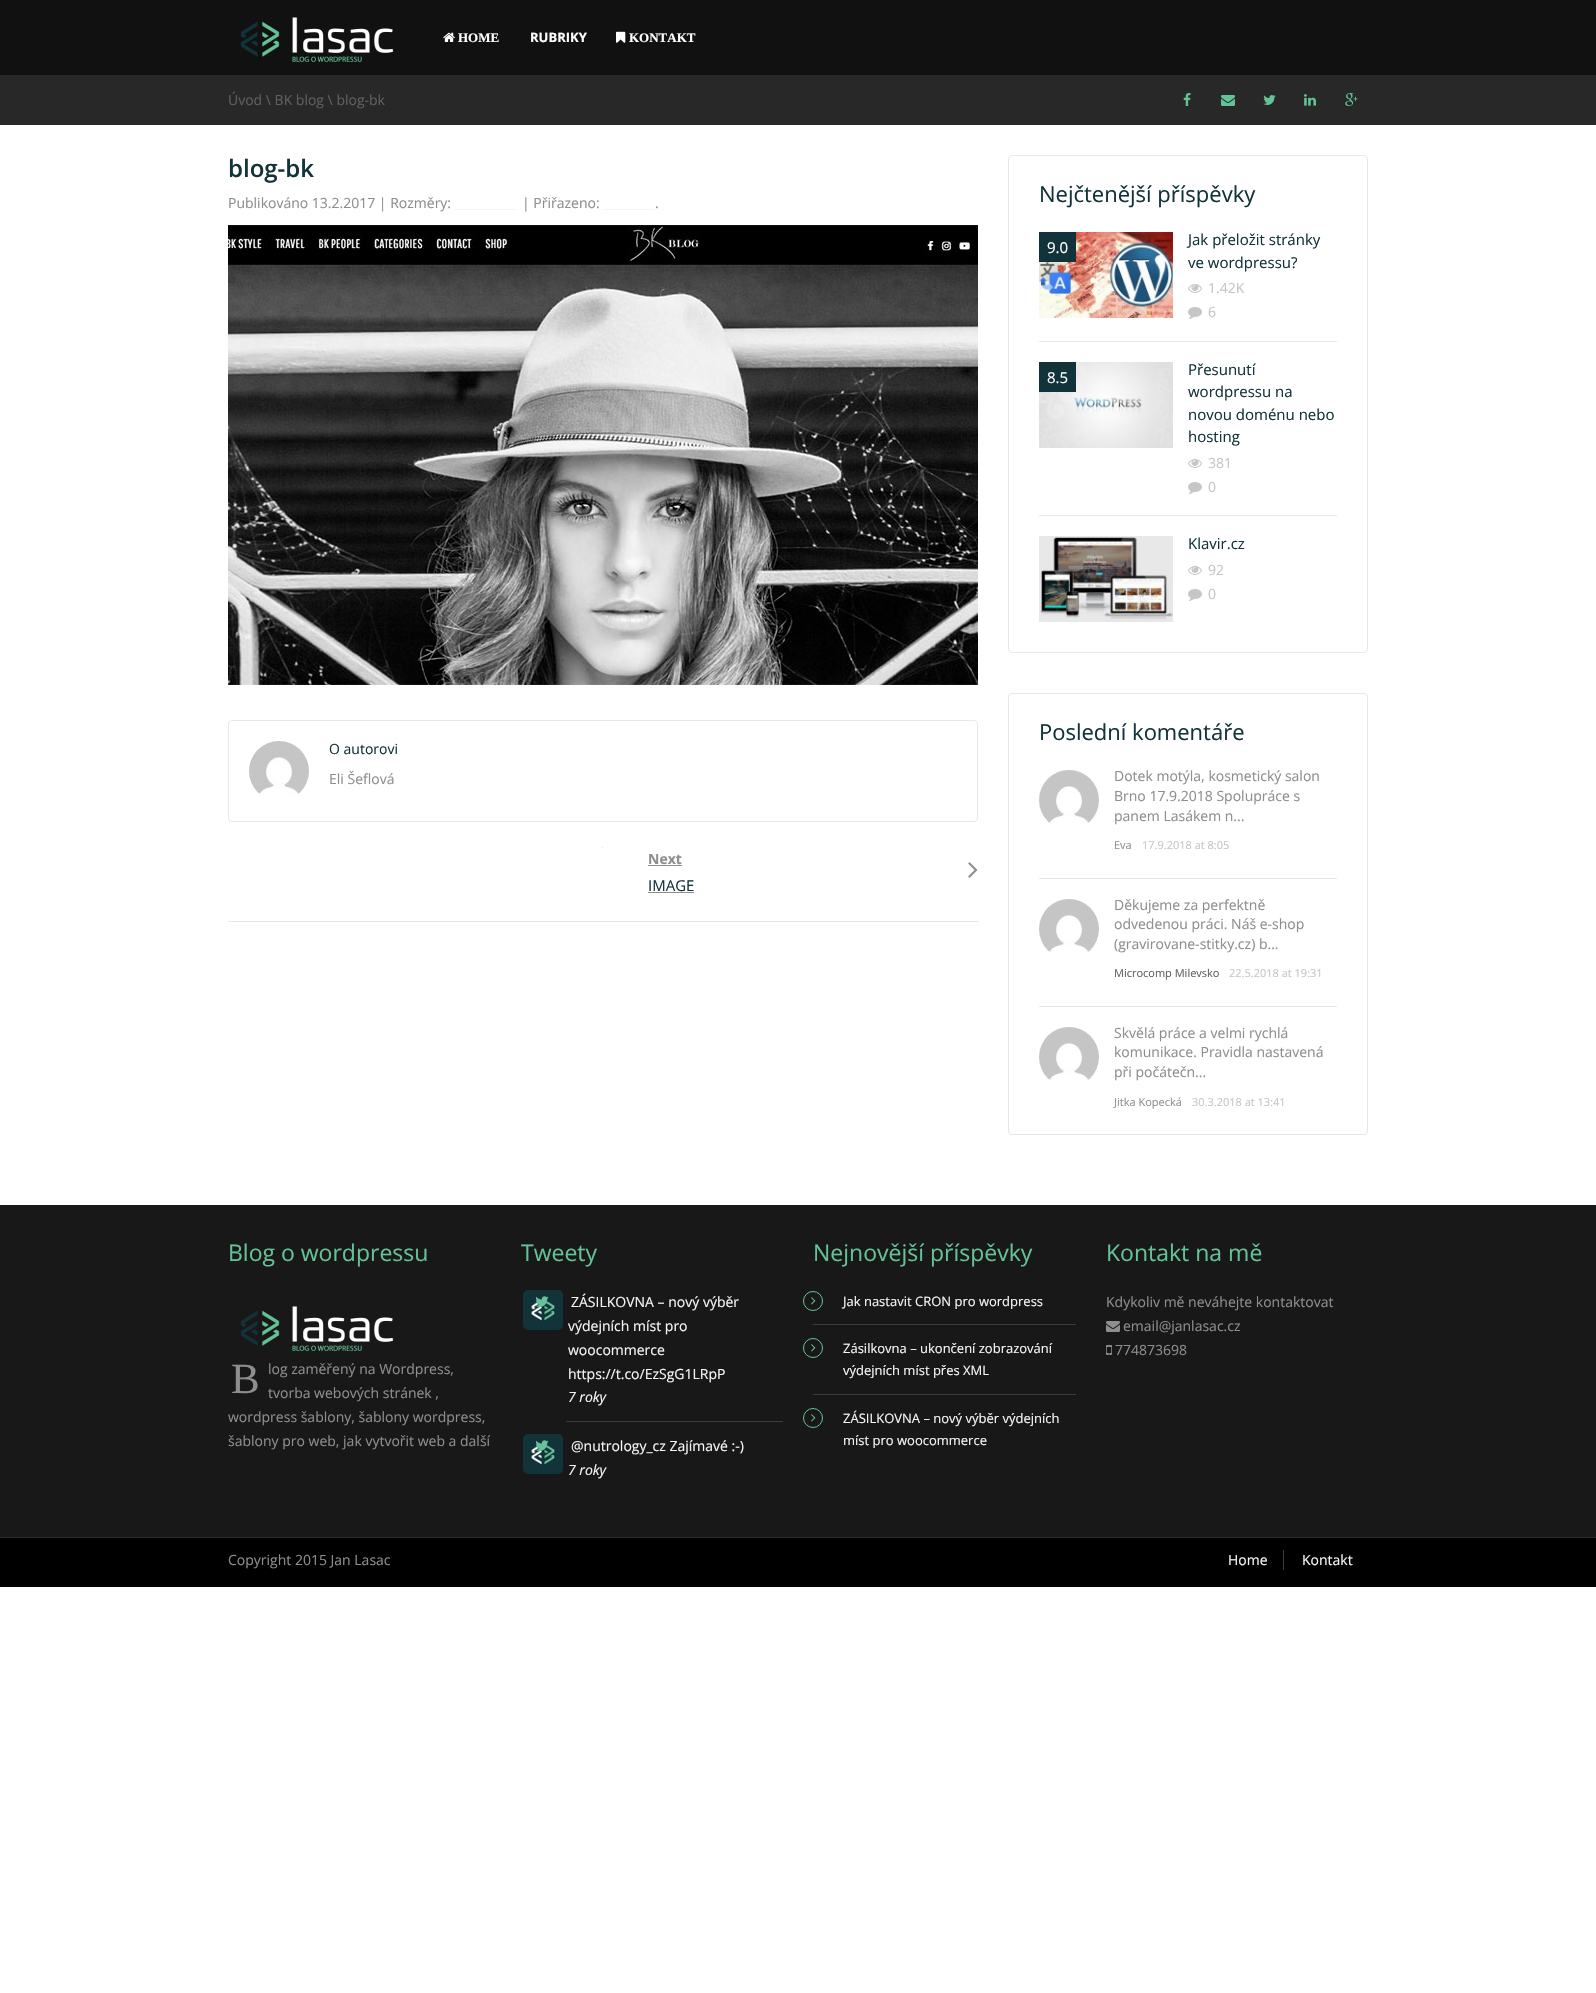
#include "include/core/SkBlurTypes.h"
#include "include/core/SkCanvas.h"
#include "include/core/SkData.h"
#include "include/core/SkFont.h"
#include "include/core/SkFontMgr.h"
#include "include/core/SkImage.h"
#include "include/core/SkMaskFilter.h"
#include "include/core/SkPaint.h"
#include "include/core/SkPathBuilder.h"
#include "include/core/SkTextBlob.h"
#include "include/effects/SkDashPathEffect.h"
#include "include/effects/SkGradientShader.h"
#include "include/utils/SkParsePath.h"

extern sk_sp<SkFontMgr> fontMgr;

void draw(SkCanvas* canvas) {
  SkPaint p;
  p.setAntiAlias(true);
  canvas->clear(SK_ColorWHITE);
  p.setColor(SkColorSetRGB(17, 17, 17));
  canvas->drawRect(SkRect::MakeLTRB(0, 0, 1596, 75), p);
  canvas->drawImageRect(SkImages::DeferredFromEncodedData(SkData::MakeFromFileName("images/1.png")), SkRect::MakeLTRB(240, 17, 394, 62), SkSamplingOptions());
  canvas->drawImageRect(SkImages::DeferredFromEncodedData(SkData::MakeFromFileName("images/2.png")), SkRect::MakeLTRB(443, 32, 455, 42), SkSamplingOptions());
  canvas->drawImageRect(SkImages::DeferredFromEncodedData(SkData::MakeFromFileName("images/3.png")), SkRect::MakeLTRB(616, 31, 626, 43), SkSamplingOptions());
  p.setColor(SkColorSetRGB(40, 40, 40));
  canvas->drawRect(SkRect::MakeLTRB(0, 75, 1596, 125), p);
  canvas->drawImageRect(SkImages::DeferredFromEncodedData(SkData::MakeFromFileName("images/4.png")), SkRect::MakeLTRB(1183, 93, 1191, 106), SkSamplingOptions());
  canvas->drawImageRect(SkImages::DeferredFromEncodedData(SkData::MakeFromFileName("images/5.png")), SkRect::MakeLTRB(1221, 95, 1235, 106), SkSamplingOptions());
  canvas->drawImageRect(SkImages::DeferredFromEncodedData(SkData::MakeFromFileName("images/6.png")), SkRect::MakeLTRB(1263, 95, 1276, 105), SkSamplingOptions());
  canvas->drawImageRect(SkImages::DeferredFromEncodedData(SkData::MakeFromFileName("images/7.png")), SkRect::MakeLTRB(1304, 94, 1316, 106), SkSamplingOptions());
  canvas->drawImageRect(SkImages::DeferredFromEncodedData(SkData::MakeFromFileName("images/8.png")), SkRect::MakeLTRB(1345, 93, 1358, 106), SkSamplingOptions());
  p.setColor(SkColorSetRGB(245, 245, 245));
  canvas->drawRect(SkRect::MakeLTRB(455, 209, 518, 210), p);
  canvas->drawRect(SkRect::MakeLTRB(603, 209, 655, 210), p);
  canvas->drawImageRect(SkImages::DeferredFromEncodedData(SkData::MakeFromFileName("images/9.png")), SkRect::MakeLTRB(228, 225, 978, 685), SkSamplingOptions());
  p.setStyle(SkPaint::kStroke_Style);
  p.setStrokeWidth(1);
  p.setColor(SkColorSetRGB(231, 231, 231));
  canvas->drawRoundRect(SkRect::MakeLTRB(228.5f, 720.5f, 977.5f, 821.5f), 3.5f, 3.5f, p);
  canvas->drawImageRect(SkImages::DeferredFromEncodedData(SkData::MakeFromFileName("images/10.png")), SkRect::MakeLTRB(249, 741, 309, 796), SkSamplingOptions());
  p.setStyle(SkPaint::kFill_Style);
  canvas->drawRect(SkRect::MakeLTRB(228, 921, 978, 922), p);
  canvas->drawRect(SkRect::MakeLTRB(602, 847, 603, 848), p);
  p.setColor(SkColorSetRGB(142, 142, 142));
  canvas->drawRect(SkRect::MakeLTRB(648, 865, 682, 866), p);
  canvas->drawRect(SkRect::MakeLTRB(648, 892, 694, 893), p);
  canvas->drawImageRect(SkImages::DeferredFromEncodedData(SkData::MakeFromFileName("images/11.png")), SkRect::MakeLTRB(968, 862, 978, 878), SkSamplingOptions());
  p.setStyle(SkPaint::kStroke_Style);
  p.setColor(SkColorSetRGB(231, 231, 231));
  canvas->drawRoundRect(SkRect::MakeLTRB(1008.5f, 155.5f, 1367.5f, 652.5f), 3.5f, 3.5f, p);
  p.setStyle(SkPaint::kFill_Style);
  canvas->drawRect(SkRect::MakeLTRB(1039, 341, 1337, 342), p);
  canvas->drawImageRect(SkImages::DeferredFromEncodedData(SkData::MakeFromFileName("images/12.png")), SkRect::MakeLTRB(1039, 232, 1173, 318), SkSamplingOptions());
  p.setColor(SkColorSetRGB(19, 51, 58));
  canvas->drawRect(SkRect::MakeLTRB(1039, 232, 1076, 262), p);
  canvas->drawImageRect(SkImages::DeferredFromEncodedData(SkData::MakeFromFileName("images/13.png")), SkRect::MakeLTRB(1188, 284, 1202, 293), SkSamplingOptions());
  canvas->drawImageRect(SkImages::DeferredFromEncodedData(SkData::MakeFromFileName("images/14.png")), SkRect::MakeLTRB(1188, 307, 1202, 319), SkSamplingOptions());
  p.setColor(SkColorSetRGB(231, 231, 231));
  canvas->drawRect(SkRect::MakeLTRB(1039, 515, 1337, 516), p);
  canvas->drawImageRect(SkImages::DeferredFromEncodedData(SkData::MakeFromFileName("images/15.png")), SkRect::MakeLTRB(1039, 362, 1173, 448), SkSamplingOptions());
  p.setColor(SkColorSetRGB(19, 51, 58));
  canvas->drawRect(SkRect::MakeLTRB(1039, 362, 1076, 392), p);
  canvas->drawImageRect(SkImages::DeferredFromEncodedData(SkData::MakeFromFileName("images/13.png")), SkRect::MakeLTRB(1188, 459, 1202, 468), SkSamplingOptions());
  canvas->drawImageRect(SkImages::DeferredFromEncodedData(SkData::MakeFromFileName("images/14.png")), SkRect::MakeLTRB(1188, 482, 1202, 494), SkSamplingOptions());
  canvas->drawImageRect(SkImages::DeferredFromEncodedData(SkData::MakeFromFileName("images/16.png")), SkRect::MakeLTRB(1039, 536, 1173, 622), SkSamplingOptions());
  canvas->drawImageRect(SkImages::DeferredFromEncodedData(SkData::MakeFromFileName("images/13.png")), SkRect::MakeLTRB(1188, 566, 1202, 575), SkSamplingOptions());
  canvas->drawImageRect(SkImages::DeferredFromEncodedData(SkData::MakeFromFileName("images/14.png")), SkRect::MakeLTRB(1188, 589, 1202, 601), SkSamplingOptions());
  p.setStyle(SkPaint::kStroke_Style);
  p.setColor(SkColorSetRGB(231, 231, 231));
  canvas->drawRoundRect(SkRect::MakeLTRB(1008.5f, 693.5f, 1367.5f, 1134.5f), 3.5f, 3.5f, p);
  p.setStyle(SkPaint::kFill_Style);
  canvas->drawRect(SkRect::MakeLTRB(1039, 878, 1337, 879), p);
  canvas->drawImageRect(SkImages::DeferredFromEncodedData(SkData::MakeFromFileName("images/17.png")), SkRect::MakeLTRB(1039, 770, 1099, 825), SkSamplingOptions());
  canvas->drawRect(SkRect::MakeLTRB(1039, 1006, 1337, 1007), p);
  canvas->drawImageRect(SkImages::DeferredFromEncodedData(SkData::MakeFromFileName("images/17.png")), SkRect::MakeLTRB(1039, 899, 1099, 954), SkSamplingOptions());
  canvas->drawImageRect(SkImages::DeferredFromEncodedData(SkData::MakeFromFileName("images/17.png")), SkRect::MakeLTRB(1039, 1027, 1099, 1082), SkSamplingOptions());
  p.setColor(SkColorSetRGB(24, 24, 24));
  canvas->drawRect(SkRect::MakeLTRB(0, 1205, 1596, 1537), p);
  canvas->drawImageRect(SkImages::DeferredFromEncodedData(SkData::MakeFromFileName("images/18.png")), SkRect::MakeLTRB(241, 1306, 394, 1351), SkSamplingOptions());
  p.setColor(SkColorSetRGB(60, 60, 60));
  canvas->drawRect(SkRect::MakeLTRB(566, 1421, 783, 1422), p);
  canvas->drawImageRect(SkImages::DeferredFromEncodedData(SkData::MakeFromFileName("images/19.png")), SkRect::MakeLTRB(523, 1290, 563, 1330), SkSamplingOptions());
  canvas->drawImageRect(SkImages::DeferredFromEncodedData(SkData::MakeFromFileName("images/20.png")), SkRect::MakeLTRB(535, 1296, 549, 1307), SkSamplingOptions());
  canvas->drawImageRect(SkImages::DeferredFromEncodedData(SkData::MakeFromFileName("images/19.png")), SkRect::MakeLTRB(523, 1434, 563, 1474), SkSamplingOptions());
  canvas->drawImageRect(SkImages::DeferredFromEncodedData(SkData::MakeFromFileName("images/20.png")), SkRect::MakeLTRB(535, 1440, 549, 1451), SkSamplingOptions());
  canvas->drawRect(SkRect::MakeLTRB(813, 1324, 1076, 1325), p);
  p.setStyle(SkPaint::kStroke_Style);
  p.setColor(SkColorSetRGB(100, 194, 151));
  canvas->drawCircle(813, 1301, 9.5f, p);
  canvas->drawImageRect(SkImages::DeferredFromEncodedData(SkData::MakeFromFileName("images/21.png")), SkRect::MakeLTRB(811, 1297, 816, 1305), SkSamplingOptions());
  p.setStyle(SkPaint::kFill_Style);
  p.setColor(SkColorSetRGB(60, 60, 60));
  canvas->drawRect(SkRect::MakeLTRB(813, 1394, 1076, 1395), p);
  p.setStyle(SkPaint::kStroke_Style);
  p.setColor(SkColorSetRGB(100, 194, 151));
  canvas->drawCircle(813, 1348, 9.5f, p);
  canvas->drawImageRect(SkImages::DeferredFromEncodedData(SkData::MakeFromFileName("images/21.png")), SkRect::MakeLTRB(811, 1344, 816, 1352), SkSamplingOptions());
  canvas->drawCircle(813, 1418, 9.5f, p);
  canvas->drawImageRect(SkImages::DeferredFromEncodedData(SkData::MakeFromFileName("images/21.png")), SkRect::MakeLTRB(811, 1414, 816, 1422), SkSamplingOptions());
  canvas->drawImageRect(SkImages::DeferredFromEncodedData(SkData::MakeFromFileName("images/22.png")), SkRect::MakeLTRB(1106, 1321, 1120, 1332), SkSamplingOptions());
  canvas->drawImageRect(SkImages::DeferredFromEncodedData(SkData::MakeFromFileName("images/23.png")), SkRect::MakeLTRB(1106, 1345, 1112, 1355), SkSamplingOptions());
  p.setStyle(SkPaint::kFill_Style);
  p.setColor(SK_ColorBLACK);
  canvas->drawRect(SkRect::MakeLTRB(0, 1538, 1596, 1587), p);
  p.setColor(SkColorSetRGB(43, 43, 43));
  canvas->drawRect(SkRect::MakeLTRB(0, 1537, 1596, 1538), p);
  p.setColor(SkColorSetRGB(60, 60, 60));
  canvas->drawRect(SkRect::MakeLTRB(1283, 1550, 1284, 1570), p);
  SkFont font1(fontMgr->matchFamilyStyle("Liberation Serif", SkFontStyle::Bold()), 13);
  font1.setSubpixel(true);
  p.setColor(SK_ColorWHITE);
  canvas->drawString("HOME", 458, 42, font1, p);
  SkFont font2(fontMgr->matchFamilyStyle("Open Sans", SkFontStyle::Bold()), 13);
  font2.setSubpixel(true);
  canvas->drawString("RUBRIKY", 530, 42, font2, p);
  canvas->drawString("KONTAKT", 629, 42, font1, p);
  SkFont font3(fontMgr->matchFamilyStyle("Open Sans", SkFontStyle::Normal()), 14);
  font3.setSubpixel(true);
  p.setColor(SkColorSetRGB(95, 95, 95));
  canvas->drawString("Úvod \\ BK blog \\ blog-bk", 228, 105, font3, p);
  SkFont font4(fontMgr->matchFamilyStyle("Open Sans", SkFontStyle(600, SkFontStyle::kNormal_Width, SkFontStyle::kUpright_Slant)), 24);
  font4.setSubpixel(true);
  p.setColor(SkColorSetRGB(19, 51, 58));
  canvas->drawString("blog-bk", 228, 177, font4, p);
  p.setColor(SkColorSetRGB(142, 142, 142));
  canvas->drawString("Publikováno 13.2.2017 | Rozměry:", 228, 208, font3, p);
  canvas->drawString("| Přiřazeno:", 522, 208, font3, p);
  canvas->drawString(".", 655, 208, font3, p);
  p.setColor(SkColorSetRGB(19, 51, 58));
  canvas->drawString("O autorovi", 329, 754, font3, p);
  p.setColor(SkColorSetRGB(142, 142, 142));
  canvas->drawString("Eli Šeflová", 329, 784, font3, p);
  SkFont font5(fontMgr->matchFamilyStyle("Open Sans", SkFontStyle::Bold()), 14);
  font5.setSubpixel(true);
  canvas->drawString("Next", 648, 864, font5, p);
  SkFont font6(fontMgr->matchFamilyStyle("Open Sans", SkFontStyle::Normal()), 15);
  font6.setSubpixel(true);
  p.setColor(SkColorSetRGB(19, 51, 58));
  canvas->drawString("IMAGE", 648, 891, font6, p);
  SkFont font7(fontMgr->matchFamilyStyle("Open Sans", SkFontStyle::Normal()), 22);
  font7.setSubpixel(true);
  canvas->drawString("Nejčtenější příspěvky", 1039, 202, font7, p);
  p.setColor(SK_ColorWHITE);
  canvas->drawString("9.0", 1047, 253, font6, p);
  p.setColor(SkColorSetRGB(19, 51, 58));
  canvas->drawString("Jak přeložit stránky", 1188, 245, font6, p);
  canvas->drawString("ve wordpressu?", 1188, 268, font6, p);
  p.setColor(SkColorSetRGB(198, 198, 198));
  canvas->drawString("1.42K", 1208, 293, font3, p);
  canvas->drawString("6", 1208, 317, font3, p);
  p.setColor(SK_ColorWHITE);
  canvas->drawString("8.5", 1047, 383, font6, p);
  p.setColor(SkColorSetRGB(19, 51, 58));
  canvas->drawString("Přesunutí", 1188, 375, font6, p);
  canvas->drawString("wordpressu na", 1188, 397, font6, p);
  canvas->drawString("novou doménu nebo", 1188, 420, font6, p);
  canvas->drawString("hosting", 1188, 442, font6, p);
  p.setColor(SkColorSetRGB(198, 198, 198));
  canvas->drawString("381", 1208, 468, font3, p);
  canvas->drawString("0", 1208, 492, font3, p);
  p.setColor(SkColorSetRGB(19, 51, 58));
  canvas->drawString("Klavir.cz", 1188, 549, font6, p);
  p.setColor(SkColorSetRGB(198, 198, 198));
  canvas->drawString("92", 1208, 575, font3, p);
  canvas->drawString("0", 1208, 599, font3, p);
  p.setColor(SkColorSetRGB(19, 51, 58));
  canvas->drawString("Poslední komentáře", 1039, 740, font7, p);
  p.setColor(SkColorSetRGB(142, 142, 142));
  canvas->drawString("Dotek motýla, kosmetický salon", 1114, 781, font3, p);
  canvas->drawString("Brno 17.9.2018 Spolupráce s", 1114, 801, font3, p);
  canvas->drawString("panem Lasákem n...", 1114, 821, font3, p);
  SkFont font8(fontMgr->matchFamilyStyle("Open Sans", SkFontStyle::Normal()), 11);
  font8.setSubpixel(true);
  canvas->drawString("Eva", 1114, 849, font8, p);
  p.setColor(SkColorSetRGB(198, 198, 198));
  canvas->drawString("17.9.2018 at 8:05", 1142, 849, font8, p);
  p.setColor(SkColorSetRGB(142, 142, 142));
  canvas->drawString("Děkujeme za perfektně", 1114, 910, font3, p);
  canvas->drawString("odvedenou práci. Náš e-shop", 1114, 929, font3, p);
  canvas->drawString("(gravirovane-stitky.cz) b...", 1114, 949, font3, p);
  p.setColor(SkColorSetRGB(95, 95, 95));
  canvas->drawString("Microcomp Milevsko", 1114, 977, font8, p);
  p.setColor(SkColorSetRGB(198, 198, 198));
  canvas->drawString("22.5.2018 at 19:31", 1229, 977, font8, p);
  p.setColor(SkColorSetRGB(142, 142, 142));
  canvas->drawString("Skvělá práce a velmi rychlá", 1114, 1038, font3, p);
  canvas->drawString("komunikace. Pravidla nastavená", 1114, 1057, font3, p);
  canvas->drawString("při počátečn...", 1114, 1077, font3, p);
  canvas->drawString("Jitka Kopecká", 1114, 1106, font8, p);
  p.setColor(SkColorSetRGB(198, 198, 198));
  canvas->drawString("30.3.2018 at 13:41", 1192, 1106, font8, p);
  SkFont font9(fontMgr->matchFamilyStyle("Open Sans", SkFontStyle::Normal()), 23);
  font9.setSubpixel(true);
  p.setColor(SkColorSetRGB(100, 194, 151));
  canvas->drawString("Blog o wordpressu", 228, 1261, font9, p);
  SkFont font10(fontMgr->matchFamilyStyle("Liberation Serif", SkFontStyle::Normal()), 43);
  font10.setSubpixel(true);
  p.setColor(SkColorSetRGB(142, 142, 142));
  canvas->drawString("B", 231, 1393, font10, p);
  canvas->drawString("log zaměřený na Wordpress,", 268, 1374, font3, p);
  canvas->drawString("tvorba webových stránek ,", 268, 1398, font3, p);
  canvas->drawString("wordpress šablony, šablony wordpress,", 228, 1422, font3, p);
  canvas->drawString("šablony pro web, jak vytvořit web a další", 228, 1446, font3, p);
  p.setColor(SkColorSetRGB(100, 194, 151));
  canvas->drawString("Tweety", 521, 1261, font9, p);
  p.setColor(SkColorSetRGB(245, 245, 245));
  canvas->drawString("ZÁSILKOVNA – nový výběr", 571, 1307, font3, p);
  canvas->drawString("výdejních míst pro", 568, 1331, font3, p);
  canvas->drawString("woocommerce", 568, 1355, font3, p);
  canvas->drawString("https://t.co/EzSgG1LRpP", 568, 1379, font3, p);
  SkFont font11(fontMgr->matchFamilyStyle("Open Sans", SkFontStyle::Italic()), 14);
  font11.setSubpixel(true);
  canvas->drawString("7 roky", 568, 1402, font11, p);
  canvas->drawString("@nutrology_cz Zajímavé :-)", 571, 1451, font3, p);
  canvas->drawString("7 roky", 568, 1475, font11, p);
  p.setColor(SkColorSetRGB(100, 194, 151));
  canvas->drawString("Nejnovější příspěvky", 813, 1261, font9, p);
  SkFont font12(fontMgr->matchFamilyStyle("Open Sans", SkFontStyle::Normal()), 13);
  font12.setSubpixel(true);
  p.setColor(SkColorSetRGB(245, 245, 245));
  canvas->drawString("Jak nastavit CRON pro wordpress", 843, 1306, font12, p);
  canvas->drawString("Zásilkovna – ukončení zobrazování", 843, 1353, font12, p);
  canvas->drawString("výdejních míst přes XML", 843, 1375, font12, p);
  canvas->drawString("ZÁSILKOVNA – nový výběr výdejních", 843, 1423, font12, p);
  canvas->drawString("míst pro woocommerce", 843, 1445, font12, p);
  p.setColor(SkColorSetRGB(100, 194, 151));
  canvas->drawString("Kontakt na mě", 1106, 1261, font9, p);
  p.setColor(SkColorSetRGB(142, 142, 142));
  canvas->drawString("Kdykoliv mě neváhejte kontaktovat", 1106, 1307, font3, p);
  canvas->drawString("email@janlasac.cz", 1123, 1331, font3, p);
  canvas->drawString("774873698", 1115, 1355, font3, p);
  canvas->drawString("Copyright 2015 Jan Lasac", 228, 1565, font3, p);
  p.setColor(SkColorSetRGB(245, 245, 245));
  canvas->drawString("Home", 1228, 1565, font3, p);
  canvas->drawString("Kontakt", 1302, 1565, font3, p);
}
